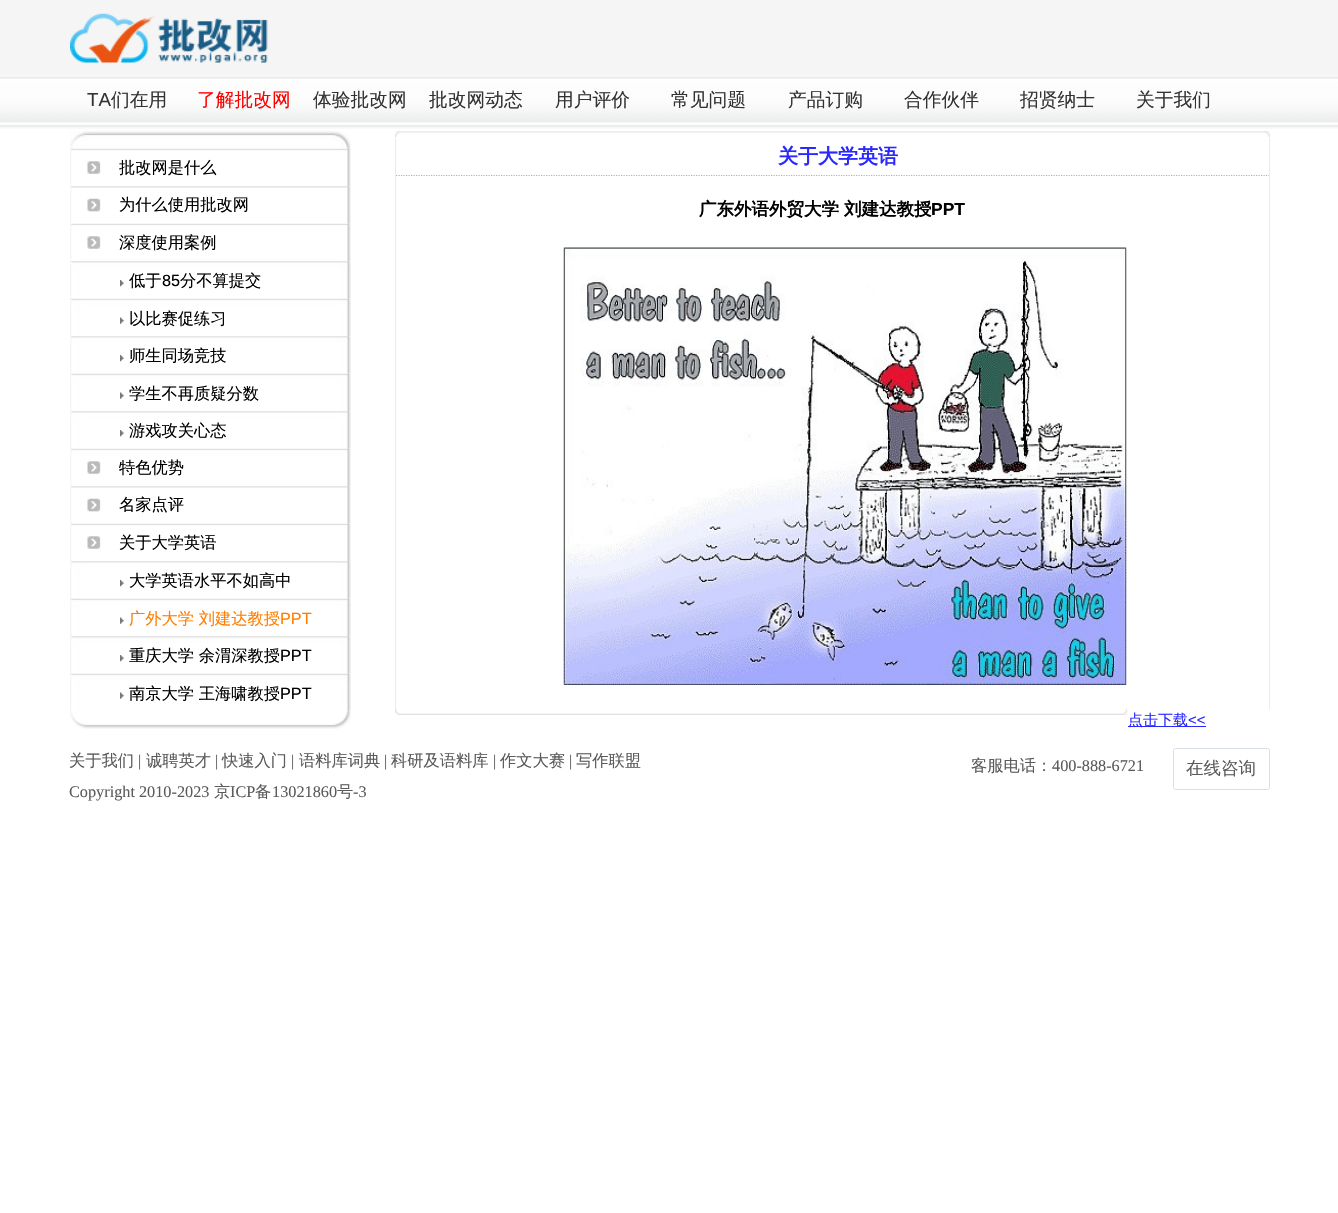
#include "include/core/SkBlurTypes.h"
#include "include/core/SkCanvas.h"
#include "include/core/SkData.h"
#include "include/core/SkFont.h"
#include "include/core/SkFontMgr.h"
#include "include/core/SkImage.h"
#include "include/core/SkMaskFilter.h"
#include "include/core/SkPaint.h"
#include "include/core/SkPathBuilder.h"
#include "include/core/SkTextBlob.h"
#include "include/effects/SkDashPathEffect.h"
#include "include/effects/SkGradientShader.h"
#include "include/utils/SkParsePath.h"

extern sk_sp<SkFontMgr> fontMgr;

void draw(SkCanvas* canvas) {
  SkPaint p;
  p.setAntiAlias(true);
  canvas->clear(SK_ColorWHITE);
  canvas->drawImageRect(SkImages::DeferredFromEncodedData(SkData::MakeFromFileName("images/1.png")), SkRect::MakeLTRB(0, 75, 1338, 129), SkSamplingOptions());
  p.setColor(SkColorSetRGB(245, 245, 245));
  canvas->drawRect(SkRect::MakeLTRB(0, 0, 1338, 75), p);
  canvas->drawImageRect(SkImages::DeferredFromEncodedData(SkData::MakeFromFileName("images/2.png")), SkRect::MakeLTRB(70, 13, 268, 63), SkSamplingOptions());
  canvas->drawImageRect(SkImages::DeferredFromEncodedData(SkData::MakeFromFileName("images/3.png")), SkRect::MakeLTRB(70, 131, 351, 149), SkSamplingOptions());
  canvas->drawImageRect(SkImages::DeferredFromEncodedData(SkData::MakeFromFileName("images/4.png")), SkRect::MakeLTRB(70, 148, 351, 187), SkSamplingOptions());
  canvas->drawImageRect(SkImages::DeferredFromEncodedData(SkData::MakeFromFileName("images/5.png")), SkRect::MakeLTRB(70, 186, 351, 224), SkSamplingOptions());
  canvas->drawImageRect(SkImages::DeferredFromEncodedData(SkData::MakeFromFileName("images/6.png")), SkRect::MakeLTRB(70, 223, 351, 262), SkSamplingOptions());
  canvas->drawImageRect(SkImages::DeferredFromEncodedData(SkData::MakeFromFileName("images/7.png")), SkRect::MakeLTRB(70, 261, 351, 299), SkSamplingOptions());
  canvas->drawImageRect(SkImages::DeferredFromEncodedData(SkData::MakeFromFileName("images/8.png")), SkRect::MakeLTRB(120, 280, 124, 287), SkSamplingOptions());
  canvas->drawImageRect(SkImages::DeferredFromEncodedData(SkData::MakeFromFileName("images/9.png")), SkRect::MakeLTRB(70, 298, 351, 337), SkSamplingOptions());
  canvas->drawImageRect(SkImages::DeferredFromEncodedData(SkData::MakeFromFileName("images/10.png")), SkRect::MakeLTRB(120, 317, 124, 324), SkSamplingOptions());
  canvas->drawImageRect(SkImages::DeferredFromEncodedData(SkData::MakeFromFileName("images/11.png")), SkRect::MakeLTRB(70, 336, 351, 374), SkSamplingOptions());
  canvas->drawImageRect(SkImages::DeferredFromEncodedData(SkData::MakeFromFileName("images/8.png")), SkRect::MakeLTRB(120, 355, 124, 362), SkSamplingOptions());
  canvas->drawImageRect(SkImages::DeferredFromEncodedData(SkData::MakeFromFileName("images/9.png")), SkRect::MakeLTRB(70, 373, 351, 412), SkSamplingOptions());
  canvas->drawImageRect(SkImages::DeferredFromEncodedData(SkData::MakeFromFileName("images/10.png")), SkRect::MakeLTRB(120, 392, 124, 399), SkSamplingOptions());
  canvas->drawImageRect(SkImages::DeferredFromEncodedData(SkData::MakeFromFileName("images/11.png")), SkRect::MakeLTRB(70, 411, 351, 449), SkSamplingOptions());
  canvas->drawImageRect(SkImages::DeferredFromEncodedData(SkData::MakeFromFileName("images/8.png")), SkRect::MakeLTRB(120, 430, 124, 437), SkSamplingOptions());
  canvas->drawImageRect(SkImages::DeferredFromEncodedData(SkData::MakeFromFileName("images/12.png")), SkRect::MakeLTRB(70, 448, 351, 487), SkSamplingOptions());
  canvas->drawImageRect(SkImages::DeferredFromEncodedData(SkData::MakeFromFileName("images/5.png")), SkRect::MakeLTRB(70, 486, 351, 524), SkSamplingOptions());
  canvas->drawImageRect(SkImages::DeferredFromEncodedData(SkData::MakeFromFileName("images/6.png")), SkRect::MakeLTRB(70, 523, 351, 562), SkSamplingOptions());
  canvas->drawImageRect(SkImages::DeferredFromEncodedData(SkData::MakeFromFileName("images/7.png")), SkRect::MakeLTRB(70, 561, 351, 599), SkSamplingOptions());
  canvas->drawImageRect(SkImages::DeferredFromEncodedData(SkData::MakeFromFileName("images/8.png")), SkRect::MakeLTRB(120, 580, 124, 587), SkSamplingOptions());
  canvas->drawImageRect(SkImages::DeferredFromEncodedData(SkData::MakeFromFileName("images/9.png")), SkRect::MakeLTRB(70, 598, 351, 637), SkSamplingOptions());
  canvas->drawImageRect(SkImages::DeferredFromEncodedData(SkData::MakeFromFileName("images/10.png")), SkRect::MakeLTRB(120, 617, 124, 624), SkSamplingOptions());
  canvas->drawImageRect(SkImages::DeferredFromEncodedData(SkData::MakeFromFileName("images/11.png")), SkRect::MakeLTRB(70, 636, 351, 674), SkSamplingOptions());
  canvas->drawImageRect(SkImages::DeferredFromEncodedData(SkData::MakeFromFileName("images/8.png")), SkRect::MakeLTRB(120, 655, 124, 662), SkSamplingOptions());
  canvas->drawImageRect(SkImages::DeferredFromEncodedData(SkData::MakeFromFileName("images/9.png")), SkRect::MakeLTRB(70, 673, 351, 712), SkSamplingOptions());
  canvas->drawImageRect(SkImages::DeferredFromEncodedData(SkData::MakeFromFileName("images/10.png")), SkRect::MakeLTRB(120, 692, 124, 699), SkSamplingOptions());
  canvas->drawImageRect(SkImages::DeferredFromEncodedData(SkData::MakeFromFileName("images/13.png")), SkRect::MakeLTRB(70, 711, 351, 729), SkSamplingOptions());
  canvas->drawImageRect(SkImages::DeferredFromEncodedData(SkData::MakeFromFileName("images/14.png")), SkRect::MakeLTRB(395, 131, 1270, 133), SkSamplingOptions());
  canvas->drawImageRect(SkImages::DeferredFromEncodedData(SkData::MakeFromFileName("images/15.png")), SkRect::MakeLTRB(395, 131, 401, 138), SkSamplingOptions());
  canvas->drawImageRect(SkImages::DeferredFromEncodedData(SkData::MakeFromFileName("images/16.png")), SkRect::MakeLTRB(1264, 131, 1270, 138), SkSamplingOptions());
  p.setColor(SkColorSetRGB(235, 235, 235));
  canvas->drawRect(SkRect::MakeLTRB(1269, 138, 1270, 709), p);
  canvas->drawRect(SkRect::MakeLTRB(395, 138, 396, 709), p);
  p.setStyle(SkPaint::kStroke_Style);
  p.setStrokeWidth(1.2f);
  p.setColor(SkColorSetRGB(0, 255, 255));
  p.setPathEffect(SkDashPathEffect::Make({{1.25f, 1.25f}}, 0));
  canvas->drawPath(SkPathBuilder().moveTo(396, 175.5f).lineTo(1269, 175.5f).detach(), p);
  p.setPathEffect(nullptr);
  canvas->drawImageRect(SkImages::DeferredFromEncodedData(SkData::MakeFromFileName("images/17.png")), SkRect::MakeLTRB(563, 247, 1127, 685), SkSamplingOptions());
  p.setStyle(SkPaint::kFill_Style);
  p.setColor(SkColorSetRGB(40, 40, 255));
  canvas->drawRect(SkRect::MakeLTRB(1128, 726, 1206, 727), p);
  canvas->drawImageRect(SkImages::DeferredFromEncodedData(SkData::MakeFromFileName("images/18.png")), SkRect::MakeLTRB(395, 708, 1128, 715), SkSamplingOptions());
  canvas->drawImageRect(SkImages::DeferredFromEncodedData(SkData::MakeFromFileName("images/19.png")), SkRect::MakeLTRB(395, 709, 399, 715), SkSamplingOptions());
  canvas->drawImageRect(SkImages::DeferredFromEncodedData(SkData::MakeFromFileName("images/20.png")), SkRect::MakeLTRB(1123, 709, 1128, 715), SkSamplingOptions());
  p.setStyle(SkPaint::kStroke_Style);
  p.setStrokeWidth(1);
  p.setColor(SkColorSetRGB(218, 222, 231));
  canvas->drawRoundRect(SkRect::MakeLTRB(1173.5f, 748.5f, 1269.5f, 789.5f), 2, 2, p);
  SkFont font1(fontMgr->matchFamilyStyle("Liberation Sans", SkFontStyle::Normal()), 18.75f);
  font1.setSubpixel(true);
  p.setStyle(SkPaint::kFill_Style);
  p.setColor(SkColorSetRGB(51, 51, 51));
  canvas->drawString("TA", 87, 106, font1, p);
  SkFont font2(fontMgr->matchFamilyStyle("WenQuanYi Zen Hei", SkFontStyle(500, SkFontStyle::kNormal_Width, SkFontStyle::kUpright_Slant)), 18.75f);
  font2.setSubpixel(true);
  canvas->drawString("们在用", 111, 106, font2, p);
  p.setColor(SkColorSetRGB(255, 0, 0));
  canvas->drawString("了解批改网", 197, 106, font2, p);
  p.setColor(SkColorSetRGB(51, 51, 51));
  canvas->drawString("体验批改网", 313, 106, font2, p);
  canvas->drawString("批改网动态", 429, 106, font2, p);
  canvas->drawString("用户评价", 555, 106, font2, p);
  canvas->drawString("常见问题", 671, 106, font2, p);
  canvas->drawString("产品订购", 788, 106, font2, p);
  canvas->drawString("合作伙伴", 904, 106, font2, p);
  canvas->drawString("招贤纳士", 1020, 106, font2, p);
  canvas->drawString("关于我们", 1136, 106, font2, p);
  SkFont font3(fontMgr->matchFamilyStyle("WenQuanYi Zen Hei", SkFontStyle(500, SkFontStyle::kNormal_Width, SkFontStyle::kUpright_Slant)), 16.25f);
  font3.setSubpixel(true);
  p.setColor(SK_ColorBLACK);
  canvas->drawString("批改网是什么", 119, 173, font3, p);
  canvas->drawString("为什么使用批改网", 119, 210, font3, p);
  canvas->drawString("深度使用案例", 119, 248, font3, p);
  canvas->drawString("低于", 129, 286, font3, p);
  SkFont font4(fontMgr->matchFamilyStyle("Liberation Sans", SkFontStyle::Normal()), 16.25f);
  font4.setSubpixel(true);
  canvas->drawString("85", 162, 286, font4, p);
  canvas->drawString("分不算提交", 180, 286, font3, p);
  canvas->drawString("以比赛促练习", 129, 324, font3, p);
  canvas->drawString("师生同场竞技", 129, 361, font3, p);
  canvas->drawString("学生不再质疑分数", 129, 399, font3, p);
  canvas->drawString("游戏攻关心态", 129, 436, font3, p);
  canvas->drawString("特色优势", 119, 473, font3, p);
  canvas->drawString("名家点评", 119, 510, font3, p);
  canvas->drawString("关于大学英语", 119, 548, font3, p);
  canvas->drawString("大学英语水平不如高中", 129, 586, font3, p);
  p.setColor(SkColorSetRGB(255, 126, 0));
  canvas->drawString("广外大学 刘建达教授", 129, 624, font3, p);
  canvas->drawString("PPT", 280, 624, font4, p);
  p.setColor(SK_ColorBLACK);
  canvas->drawString("重庆大学 余渭深教授", 129, 661, font3, p);
  canvas->drawString("PPT", 280, 661, font4, p);
  canvas->drawString("南京大学 王海啸教授", 129, 699, font3, p);
  canvas->drawString("PPT", 280, 699, font4, p);
  SkFont font5(fontMgr->matchFamilyStyle("WenQuanYi Zen Hei", SkFontStyle::Bold()), 20);
  font5.setSubpixel(true);
  p.setColor(SkColorSetRGB(40, 40, 255));
  canvas->drawString("关于大学英语", 778, 163, font5, p);
  SkFont font6(fontMgr->matchFamilyStyle("WenQuanYi Zen Hei", SkFontStyle::Bold()), 17.5f);
  font6.setSubpixel(true);
  p.setColor(SK_ColorBLACK);
  canvas->drawString("广东外语外贸大学", 699, 215, font6, p);
  canvas->drawString("刘建达教授", 844, 215, font6, p);
  SkFont font7(fontMgr->matchFamilyStyle("Liberation Sans", SkFontStyle::Bold()), 17.5f);
  font7.setSubpixel(true);
  canvas->drawString("PPT", 931, 215, font7, p);
  SkFont font8(fontMgr->matchFamilyStyle("WenQuanYi Zen Hei", SkFontStyle(500, SkFontStyle::kNormal_Width, SkFontStyle::kUpright_Slant)), 15);
  font8.setSubpixel(true);
  p.setColor(SkColorSetRGB(40, 40, 255));
  canvas->drawString("点击下载", 1128, 725, font8, p);
  SkFont font9(fontMgr->matchFamilyStyle("Liberation Sans", SkFontStyle::Normal()), 15);
  font9.setSubpixel(true);
  canvas->drawString("<<", 1188, 725, font9, p);
  p.setColor(SkColorSetRGB(91, 91, 91));
  canvas->drawString("关于我们", 69, 766, font3, p);
  SkFont font10(fontMgr->matchFamilyStyle("Liberation Serif", SkFontStyle::Normal()), 16.25f);
  font10.setSubpixel(true);
  canvas->drawString("|", 138, 766, font10, p);
  canvas->drawString("诚聘英才", 146, 766, font3, p);
  canvas->drawString("|", 215, 766, font10, p);
  canvas->drawString("快速入门", 222, 766, font3, p);
  canvas->drawString("|", 291, 766, font10, p);
  canvas->drawString("语料库词典", 299, 766, font3, p);
  canvas->drawString("|", 384, 766, font10, p);
  canvas->drawString("科研及语料库", 391, 766, font3, p);
  canvas->drawString("|", 493, 766, font10, p);
  canvas->drawString("作文大赛", 500, 766, font3, p);
  canvas->drawString("|", 569, 766, font10, p);
  canvas->drawString("写作联盟", 576, 766, font3, p);
  canvas->drawString("Copyright 2010-2023", 69, 797, font10, p);
  canvas->drawString("京", 214, 797, font3, p);
  canvas->drawString("ICP", 230, 797, font10, p);
  canvas->drawString("备", 255, 797, font3, p);
  canvas->drawString("13021860", 272, 797, font10, p);
  canvas->drawString("号", 337, 797, font3, p);
  canvas->drawString("-3", 353, 797, font10, p);
  canvas->drawString("客服电话：", 971, 771, font3, p);
  canvas->drawString("400-888-6721", 1052, 771, font10, p);
  SkFont font11(fontMgr->matchFamilyStyle("WenQuanYi Zen Hei", SkFontStyle(500, SkFontStyle::kNormal_Width, SkFontStyle::kUpright_Slant)), 17.5f);
  font11.setSubpixel(true);
  canvas->drawString("在线咨询", 1186, 774, font11, p);
}
